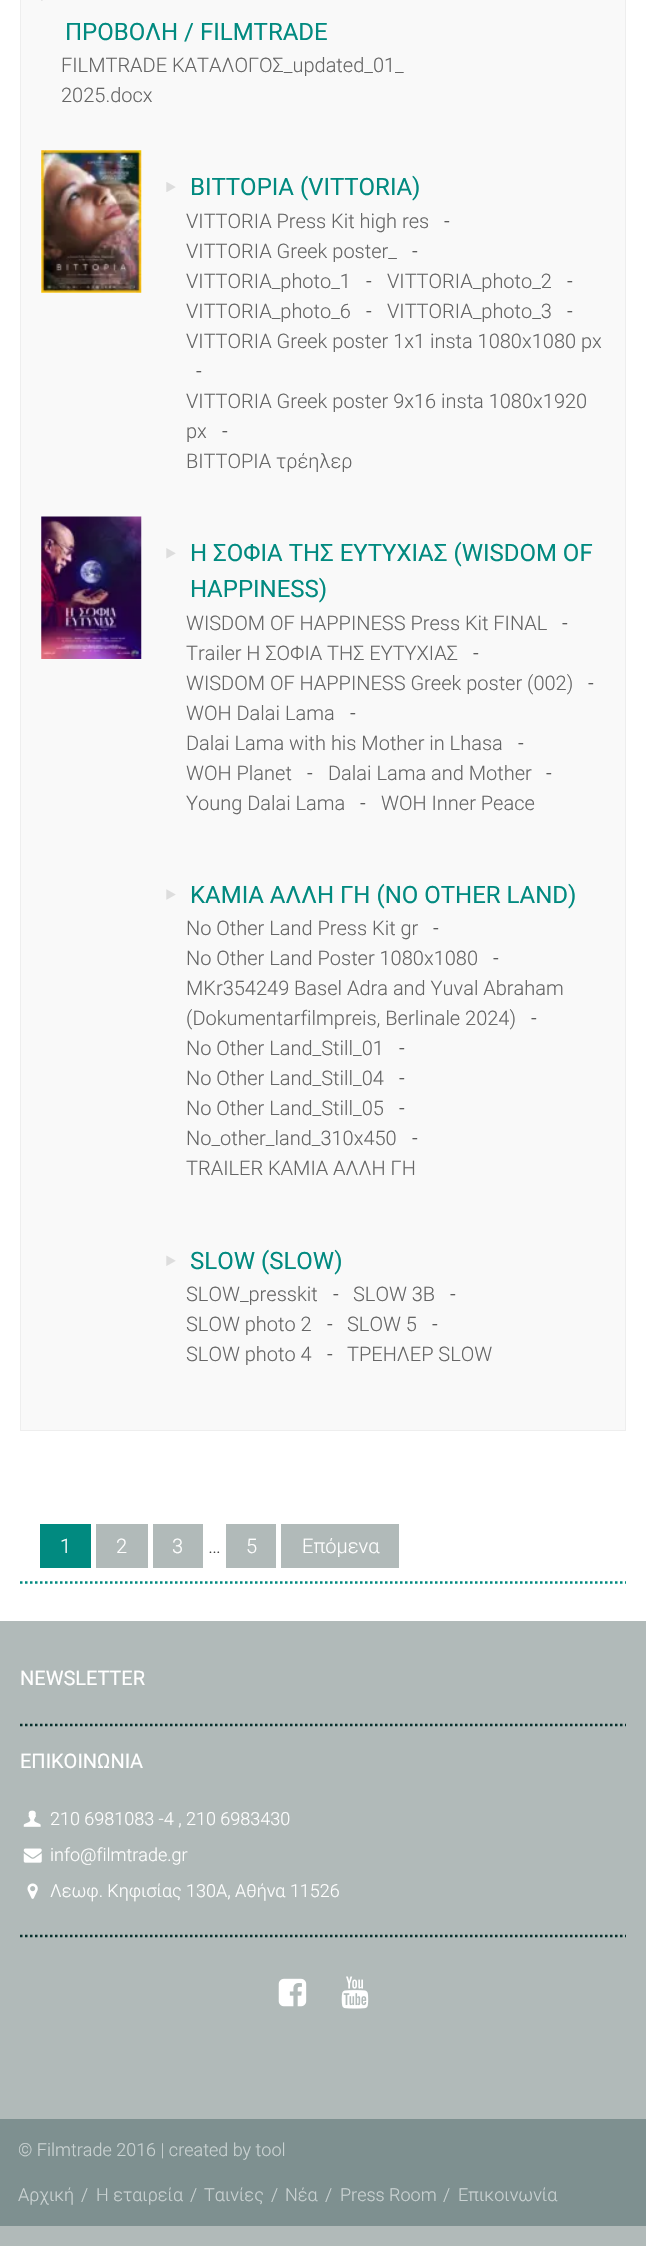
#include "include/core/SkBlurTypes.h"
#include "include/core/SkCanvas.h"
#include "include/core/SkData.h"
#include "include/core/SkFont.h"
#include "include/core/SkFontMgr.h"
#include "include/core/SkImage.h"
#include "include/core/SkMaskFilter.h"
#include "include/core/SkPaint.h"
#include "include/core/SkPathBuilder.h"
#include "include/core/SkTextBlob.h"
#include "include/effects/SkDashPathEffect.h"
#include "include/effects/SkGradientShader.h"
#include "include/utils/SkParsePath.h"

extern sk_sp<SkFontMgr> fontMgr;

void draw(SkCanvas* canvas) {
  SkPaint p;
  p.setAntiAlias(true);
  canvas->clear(SK_ColorWHITE);
  p.setColor(SkColorSetRGB(249, 249, 249));
  canvas->drawRect(SkRect::MakeLTRB(20.5f, -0.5f, 625.5f, 1430.5f), p);
  p.setStyle(SkPaint::kStroke_Style);
  p.setStrokeWidth(1);
  p.setColor(SkColorSetRGB(238, 238, 238));
  canvas->drawRect(SkRect::MakeLTRB(20.5f, -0.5f, 625.5f, 1430.5f), p);
  canvas->drawImageRect(SkImages::DeferredFromEncodedData(SkData::MakeFromFileName("images/1.png")), SkRect::MakeLTRB(41, 0, 43, 1), SkSamplingOptions());
  canvas->drawImageRect(SkImages::DeferredFromEncodedData(SkData::MakeFromFileName("images/2.png")), SkRect::MakeLTRB(41, 150, 142, 293), SkSamplingOptions());
  canvas->drawImageRect(SkImages::DeferredFromEncodedData(SkData::MakeFromFileName("images/3.png")), SkRect::MakeLTRB(166, 182, 176, 192), SkSamplingOptions());
  canvas->drawImageRect(SkImages::DeferredFromEncodedData(SkData::MakeFromFileName("images/4.png")), SkRect::MakeLTRB(41, 516, 142, 659), SkSamplingOptions());
  canvas->drawImageRect(SkImages::DeferredFromEncodedData(SkData::MakeFromFileName("images/5.png")), SkRect::MakeLTRB(166, 548, 176, 559), SkSamplingOptions());
  canvas->drawImageRect(SkImages::DeferredFromEncodedData(SkData::MakeFromFileName("images/6.png")), SkRect::MakeLTRB(166, 889, 176, 900), SkSamplingOptions());
  canvas->drawImageRect(SkImages::DeferredFromEncodedData(SkData::MakeFromFileName("images/7.png")), SkRect::MakeLTRB(166, 1255, 176, 1266), SkSamplingOptions());
  p.setStyle(SkPaint::kFill_Style);
  p.setColor(SkColorSetRGB(1, 138, 128));
  canvas->drawRect(SkRect::MakeLTRB(40, 1524, 91, 1568), p);
  p.setColor(SkColorSetRGB(177, 186, 185));
  canvas->drawRect(SkRect::MakeLTRB(96, 1524, 148, 1568), p);
  canvas->drawRect(SkRect::MakeLTRB(153, 1524, 203, 1568), p);
  canvas->drawRect(SkRect::MakeLTRB(226, 1524, 276, 1568), p);
  canvas->drawRect(SkRect::MakeLTRB(281, 1524, 399, 1568), p);
  canvas->drawRect(SkRect::MakeLTRB(0, 1621, 646, 2246), p);
  p.setStyle(SkPaint::kStroke_Style);
  p.setStrokeWidth(2.5f);
  p.setColor(SkColorSetRGB(1, 138, 128));
  p.setPathEffect(SkDashPathEffect::Make({{2.5f, 2.5f}}, 0));
  canvas->drawPath(SkPathBuilder().moveTo(20, 1582.5f).lineTo(626, 1582.5f).detach(), p);
  p.setPathEffect(nullptr);
  p.setColor(SkColorSetRGB(5, 47, 43));
  p.setPathEffect(SkDashPathEffect::Make({{2.5f, 2.5f}}, 0));
  canvas->drawPath(SkPathBuilder().moveTo(20, 1725).lineTo(626, 1725).detach(), p);
  p.setPathEffect(nullptr);
  p.setPathEffect(SkDashPathEffect::Make({{2.5f, 2.5f}}, 0));
  canvas->drawPath(SkPathBuilder().moveTo(20, 1936).lineTo(626, 1936).detach(), p);
  p.setPathEffect(nullptr);
  canvas->drawImageRect(SkImages::DeferredFromEncodedData(SkData::MakeFromFileName("images/8.png")), SkRect::MakeLTRB(23, 1810, 41, 1827), SkSamplingOptions());
  canvas->drawImageRect(SkImages::DeferredFromEncodedData(SkData::MakeFromFileName("images/9.png")), SkRect::MakeLTRB(23, 1848, 42, 1863), SkSamplingOptions());
  canvas->drawImageRect(SkImages::DeferredFromEncodedData(SkData::MakeFromFileName("images/10.png")), SkRect::MakeLTRB(27, 1883, 38, 1899), SkSamplingOptions());
  canvas->drawImageRect(SkImages::DeferredFromEncodedData(SkData::MakeFromFileName("images/11.png")), SkRect::MakeLTRB(278, 1978, 307, 2007), SkSamplingOptions());
  canvas->drawImageRect(SkImages::DeferredFromEncodedData(SkData::MakeFromFileName("images/12.png")), SkRect::MakeLTRB(341, 1976, 369, 2009), SkSamplingOptions());
  p.setStyle(SkPaint::kFill_Style);
  p.setColor(SkColorSetRGB(126, 144, 144));
  canvas->drawRect(SkRect::MakeLTRB(0, 2119, 646, 2226), p);
  SkFont font1(fontMgr->matchFamilyStyle("Roboto", SkFontStyle::Normal()), 24);
  font1.setSubpixel(true);
  p.setColor(SkColorSetRGB(1, 138, 128));
  canvas->drawString("ΠΡΟΒΟΛΗ / FILMTRADE", 65, 40, font1, p);
  SkFont font2(fontMgr->matchFamilyStyle("Roboto", SkFontStyle(300, SkFontStyle::kNormal_Width, SkFontStyle::kUpright_Slant)), 20);
  font2.setSubpixel(true);
  p.setColor(SkColorSetRGB(102, 102, 102));
  canvas->drawString("FILMTRADE ΚΑΤΑΛΟΓΟΣ_updated_01_", 61, 72, font2, p);
  canvas->drawString("2025.docx", 61, 102, font2, p);
  p.setColor(SkColorSetRGB(1, 138, 128));
  canvas->drawString("ΒΙΤΤΟΡΙΑ (VITTORIA)", 190, 195, font1, p);
  p.setColor(SkColorSetRGB(102, 102, 102));
  canvas->drawString("VITTORIA Press Kit high res", 186, 228, font2, p);
  p.setColor(SkColorSetRGB(64, 64, 64));
  canvas->drawString("-", 444, 228, font2, p);
  p.setColor(SkColorSetRGB(102, 102, 102));
  canvas->drawString("VITTORIA Greek poster_", 186, 258, font2, p);
  p.setColor(SkColorSetRGB(64, 64, 64));
  canvas->drawString("-", 412, 258, font2, p);
  p.setColor(SkColorSetRGB(102, 102, 102));
  canvas->drawString("VITTORIA_photo_1", 186, 288, font2, p);
  p.setColor(SkColorSetRGB(64, 64, 64));
  canvas->drawString("-", 366, 288, font2, p);
  p.setColor(SkColorSetRGB(102, 102, 102));
  canvas->drawString("VITTORIA_photo_2", 387, 288, font2, p);
  p.setColor(SkColorSetRGB(64, 64, 64));
  canvas->drawString("-", 567, 288, font2, p);
  p.setColor(SkColorSetRGB(102, 102, 102));
  canvas->drawString("VITTORIA_photo_6", 186, 318, font2, p);
  p.setColor(SkColorSetRGB(64, 64, 64));
  canvas->drawString("-", 366, 318, font2, p);
  p.setColor(SkColorSetRGB(102, 102, 102));
  canvas->drawString("VITTORIA_photo_3", 387, 318, font2, p);
  p.setColor(SkColorSetRGB(64, 64, 64));
  canvas->drawString("-", 567, 318, font2, p);
  p.setColor(SkColorSetRGB(102, 102, 102));
  canvas->drawString("VITTORIA Greek poster 1x1 insta 1080x1080 px", 186, 348, font2, p);
  p.setColor(SkColorSetRGB(64, 64, 64));
  canvas->drawString("-", 196, 378, font2, p);
  p.setColor(SkColorSetRGB(102, 102, 102));
  canvas->drawString("VITTORIA Greek poster 9x16 insta 1080x1920", 186, 408, font2, p);
  canvas->drawString("px", 186, 438, font2, p);
  p.setColor(SkColorSetRGB(64, 64, 64));
  canvas->drawString("-", 222, 438, font2, p);
  p.setColor(SkColorSetRGB(102, 102, 102));
  canvas->drawString("ΒΙΤΤΟΡΙΑ τρέηλερ", 186, 468, font2, p);
  p.setColor(SkColorSetRGB(1, 138, 128));
  canvas->drawString("Η ΣΟΦΙΑ ΤΗΣ ΕΥΤΥΧΙΑΣ (WISDOM OF", 190, 561, font1, p);
  canvas->drawString("HAPPINESS)", 190, 597, font1, p);
  p.setColor(SkColorSetRGB(102, 102, 102));
  canvas->drawString("WISDOM OF HAPPINESS Press Kit FINAL", 186, 630, font2, p);
  p.setColor(SkColorSetRGB(64, 64, 64));
  canvas->drawString("-", 562, 630, font2, p);
  p.setColor(SkColorSetRGB(102, 102, 102));
  canvas->drawString("Trailer Η ΣΟΦΙΑ ΤΗΣ ΕΥΤΥΧΙΑΣ", 186, 660, font2, p);
  p.setColor(SkColorSetRGB(64, 64, 64));
  canvas->drawString("-", 473, 660, font2, p);
  p.setColor(SkColorSetRGB(102, 102, 102));
  canvas->drawString("WISDOM OF HAPPINESS Greek poster (002)", 186, 690, font2, p);
  p.setColor(SkColorSetRGB(64, 64, 64));
  canvas->drawString("-", 588, 690, font2, p);
  p.setColor(SkColorSetRGB(102, 102, 102));
  canvas->drawString("WOH Dalai Lama", 186, 720, font2, p);
  p.setColor(SkColorSetRGB(64, 64, 64));
  canvas->drawString("-", 350, 720, font2, p);
  p.setColor(SkColorSetRGB(102, 102, 102));
  canvas->drawString("Dalai Lama with his Mother in Lhasa", 186, 750, font2, p);
  p.setColor(SkColorSetRGB(64, 64, 64));
  canvas->drawString("-", 518, 750, font2, p);
  p.setColor(SkColorSetRGB(102, 102, 102));
  canvas->drawString("WOH Planet", 186, 780, font2, p);
  p.setColor(SkColorSetRGB(64, 64, 64));
  canvas->drawString("-", 307, 780, font2, p);
  p.setColor(SkColorSetRGB(102, 102, 102));
  canvas->drawString("Dalai Lama and Mother", 328, 780, font2, p);
  p.setColor(SkColorSetRGB(64, 64, 64));
  canvas->drawString("-", 546, 780, font2, p);
  p.setColor(SkColorSetRGB(102, 102, 102));
  canvas->drawString("Young Dalai Lama", 186, 810, font2, p);
  p.setColor(SkColorSetRGB(64, 64, 64));
  canvas->drawString("-", 360, 810, font2, p);
  p.setColor(SkColorSetRGB(102, 102, 102));
  canvas->drawString("WOH Inner Peace", 381, 810, font2, p);
  p.setColor(SkColorSetRGB(1, 138, 128));
  canvas->drawString("ΚΑΜΙΑ ΑΛΛΗ ΓΗ (NO OTHER LAND)", 190, 903, font1, p);
  p.setColor(SkColorSetRGB(102, 102, 102));
  canvas->drawString("No Other Land Press Kit gr", 186, 935, font2, p);
  p.setColor(SkColorSetRGB(64, 64, 64));
  canvas->drawString("-", 433, 935, font2, p);
  p.setColor(SkColorSetRGB(102, 102, 102));
  canvas->drawString("No Other Land Poster 1080x1080", 186, 965, font2, p);
  p.setColor(SkColorSetRGB(64, 64, 64));
  canvas->drawString("-", 493, 965, font2, p);
  p.setColor(SkColorSetRGB(102, 102, 102));
  canvas->drawString("MKr354249 Basel Adra and Yuval Abraham", 186, 995, font2, p);
  canvas->drawString("(Dokumentarfilmpreis, Berlinale 2024)", 186, 1025, font2, p);
  p.setColor(SkColorSetRGB(64, 64, 64));
  canvas->drawString("-", 531, 1025, font2, p);
  p.setColor(SkColorSetRGB(102, 102, 102));
  canvas->drawString("No Other Land_Still_01", 186, 1055, font2, p);
  p.setColor(SkColorSetRGB(64, 64, 64));
  canvas->drawString("-", 399, 1055, font2, p);
  p.setColor(SkColorSetRGB(102, 102, 102));
  canvas->drawString("No Other Land_Still_04", 186, 1085, font2, p);
  p.setColor(SkColorSetRGB(64, 64, 64));
  canvas->drawString("-", 399, 1085, font2, p);
  p.setColor(SkColorSetRGB(102, 102, 102));
  canvas->drawString("No Other Land_Still_05", 186, 1115, font2, p);
  p.setColor(SkColorSetRGB(64, 64, 64));
  canvas->drawString("-", 399, 1115, font2, p);
  p.setColor(SkColorSetRGB(102, 102, 102));
  canvas->drawString("No_other_land_310x450", 186, 1145, font2, p);
  p.setColor(SkColorSetRGB(64, 64, 64));
  canvas->drawString("-", 412, 1145, font2, p);
  p.setColor(SkColorSetRGB(102, 102, 102));
  canvas->drawString("TRAILER ΚΑΜΙΑ ΑΛΛΗ ΓΗ", 186, 1175, font2, p);
  p.setColor(SkColorSetRGB(1, 138, 128));
  canvas->drawString("SLOW (SLOW)", 190, 1269, font1, p);
  p.setColor(SkColorSetRGB(102, 102, 102));
  canvas->drawString("SLOW_presskit", 186, 1301, font2, p);
  p.setColor(SkColorSetRGB(64, 64, 64));
  canvas->drawString("-", 333, 1301, font2, p);
  p.setColor(SkColorSetRGB(102, 102, 102));
  canvas->drawString("SLOW 3B", 353, 1301, font2, p);
  p.setColor(SkColorSetRGB(64, 64, 64));
  canvas->drawString("-", 450, 1301, font2, p);
  p.setColor(SkColorSetRGB(102, 102, 102));
  canvas->drawString("SLOW photo 2", 186, 1331, font2, p);
  p.setColor(SkColorSetRGB(64, 64, 64));
  canvas->drawString("-", 327, 1331, font2, p);
  p.setColor(SkColorSetRGB(102, 102, 102));
  canvas->drawString("SLOW 5", 347, 1331, font2, p);
  p.setColor(SkColorSetRGB(64, 64, 64));
  canvas->drawString("-", 432, 1331, font2, p);
  p.setColor(SkColorSetRGB(102, 102, 102));
  canvas->drawString("SLOW photo 4", 186, 1361, font2, p);
  p.setColor(SkColorSetRGB(64, 64, 64));
  canvas->drawString("-", 327, 1361, font2, p);
  p.setColor(SkColorSetRGB(102, 102, 102));
  canvas->drawString("ΤΡΕΗΛΕΡ SLOW", 347, 1361, font2, p);
  p.setColor(SK_ColorWHITE);
  canvas->drawString("1", 60, 1553, font2, p);
  canvas->drawString("2", 116, 1553, font2, p);
  canvas->drawString("3", 172, 1553, font2, p);
  p.setColor(SkColorSetRGB(64, 64, 64));
  canvas->drawString("…", 208, 1553, font2, p);
  p.setColor(SK_ColorWHITE);
  canvas->drawString("5", 246, 1553, font2, p);
  canvas->drawString("Επόμενα", 302, 1553, font2, p);
  SkFont font3(fontMgr->matchFamilyStyle("Roboto", SkFontStyle::Normal()), 20);
  font3.setSubpixel(true);
  canvas->drawString("NEWSLETTER", 20, 1685, font3, p);
  canvas->drawString("ΕΠΙΚΟΙΝΩΝΙΑ", 20, 1768, font3, p);
  SkFont font4(fontMgr->matchFamilyStyle("Roboto", SkFontStyle(300, SkFontStyle::kNormal_Width, SkFontStyle::kUpright_Slant)), 18);
  font4.setSubpixel(true);
  canvas->drawString("210 6981083 -4 , 210 6983430", 50, 1825, font4, p);
  canvas->drawString("info@filmtrade.gr", 50, 1861, font4, p);
  canvas->drawString("Λεωφ. Κηφισίας 130A, Αθήνα 11526", 50, 1897, font4, p);
  p.setColor(SkColorSetRGB(203, 211, 211));
  canvas->drawString("© Filmtrade 2016 | created by tool", 18, 2156, font4, p);
  canvas->drawString("Αρχική", 18, 2201, font4, p);
  canvas->drawString("/", 81, 2201, font4, p);
  canvas->drawString("Η εταιρεία", 96, 2201, font4, p);
  canvas->drawString("/", 190, 2201, font4, p);
  canvas->drawString("Ταινίες", 204, 2201, font4, p);
  canvas->drawString("/", 271, 2201, font4, p);
  canvas->drawString("Νέα", 285, 2201, font4, p);
  canvas->drawString("/", 325, 2201, font4, p);
  canvas->drawString("Press Room", 340, 2201, font4, p);
  canvas->drawString("/", 443, 2201, font4, p);
  canvas->drawString("Επικοινωνία", 458, 2201, font4, p);
}
